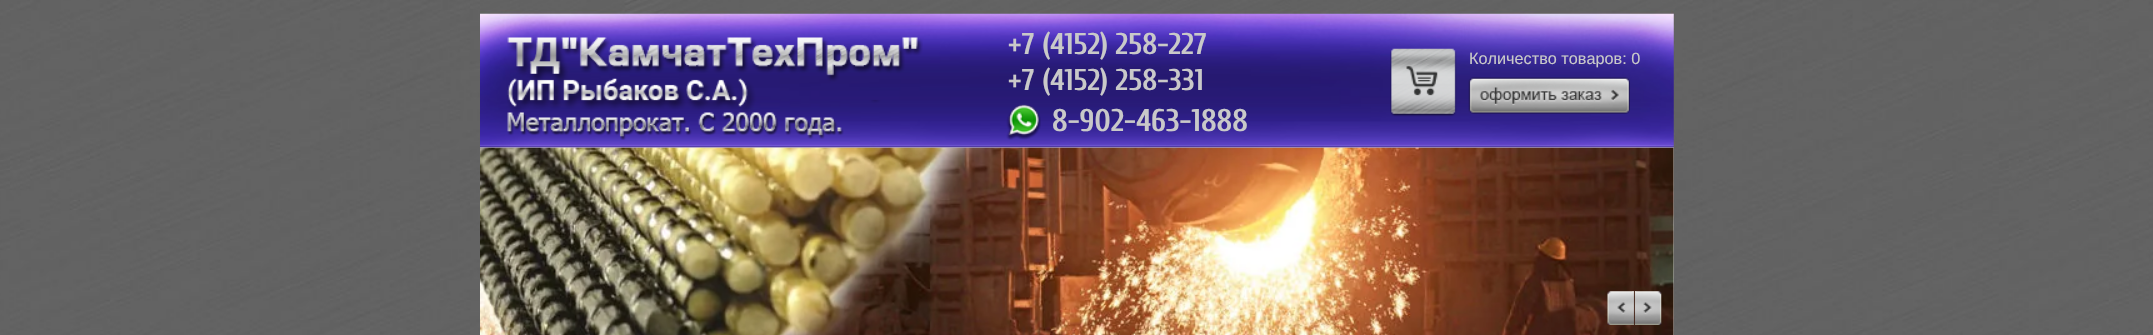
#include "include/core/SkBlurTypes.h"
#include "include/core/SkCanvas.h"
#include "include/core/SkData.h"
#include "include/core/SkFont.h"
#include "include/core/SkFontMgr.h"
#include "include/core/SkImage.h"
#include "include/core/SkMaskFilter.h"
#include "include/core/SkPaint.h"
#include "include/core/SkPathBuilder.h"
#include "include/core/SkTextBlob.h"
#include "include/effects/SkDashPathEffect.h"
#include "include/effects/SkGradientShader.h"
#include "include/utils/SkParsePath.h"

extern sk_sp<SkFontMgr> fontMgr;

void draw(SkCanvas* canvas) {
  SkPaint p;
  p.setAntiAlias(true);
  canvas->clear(SK_ColorWHITE);
  canvas->drawImageRect(SkImages::DeferredFromEncodedData(SkData::MakeFromFileName("images/1.png")), SkRect::MakeLTRB(0, 0, 2153, 335), SkSamplingOptions());
  canvas->drawImageRect(SkImages::DeferredFromEncodedData(SkData::MakeFromFileName("images/2.png")), SkRect::MakeLTRB(480, 0, 1675, 335), SkSamplingOptions());
  canvas->drawImageRect(SkImages::DeferredFromEncodedData(SkData::MakeFromFileName("images/3.png")), SkRect::MakeLTRB(507, 37, 923, 140), SkSamplingOptions());
  canvas->drawImageRect(SkImages::DeferredFromEncodedData(SkData::MakeFromFileName("images/4.png")), SkRect::MakeLTRB(1390, 48, 1457, 117), SkSamplingOptions());
  canvas->drawImageRect(SkImages::DeferredFromEncodedData(SkData::MakeFromFileName("images/5.png")), SkRect::MakeLTRB(1468, 77, 1630, 114), SkSamplingOptions());
  canvas->drawImageRect(SkImages::DeferredFromEncodedData(SkData::MakeFromFileName("images/6.png")), SkRect::MakeLTRB(1006, 104, 1041, 140), SkSamplingOptions());
  canvas->drawImageRect(SkImages::DeferredFromEncodedData(SkData::MakeFromFileName("images/7.png")), SkRect::MakeLTRB(480, 147, 1674, 335), SkSamplingOptions());
  canvas->drawImageRect(SkImages::DeferredFromEncodedData(SkData::MakeFromFileName("images/8.png")), SkRect::MakeLTRB(1607, 291, 1637, 325), SkSamplingOptions());
  canvas->drawImageRect(SkImages::DeferredFromEncodedData(SkData::MakeFromFileName("images/9.png")), SkRect::MakeLTRB(1632, 291, 1662, 325), SkSamplingOptions());
  SkFont font1(fontMgr->matchFamilyStyle("Cuprum", SkFontStyle::Bold()), 30);
  font1.setSubpixel(true);
  p.setColor(SkColorSetRGB(201, 201, 201));
  canvas->drawString("+7 (4152) 258-227", 1008, 54, font1, p);
  canvas->drawString("+7 (4152) 258-331", 1008, 90, font1, p);
  SkFont font2(fontMgr->matchFamilyStyle("Liberation Sans", SkFontStyle::Normal()), 16.25f);
  font2.setSubpixel(true);
  canvas->drawString("Количество товаров: 0", 1469, 64, font2, p);
  SkFont font3(fontMgr->matchFamilyStyle("Cuprum", SkFontStyle::Bold()), 31.25f);
  font3.setSubpixel(true);
  canvas->drawString("8-902-463-1888", 1052, 131, font3, p);
}
